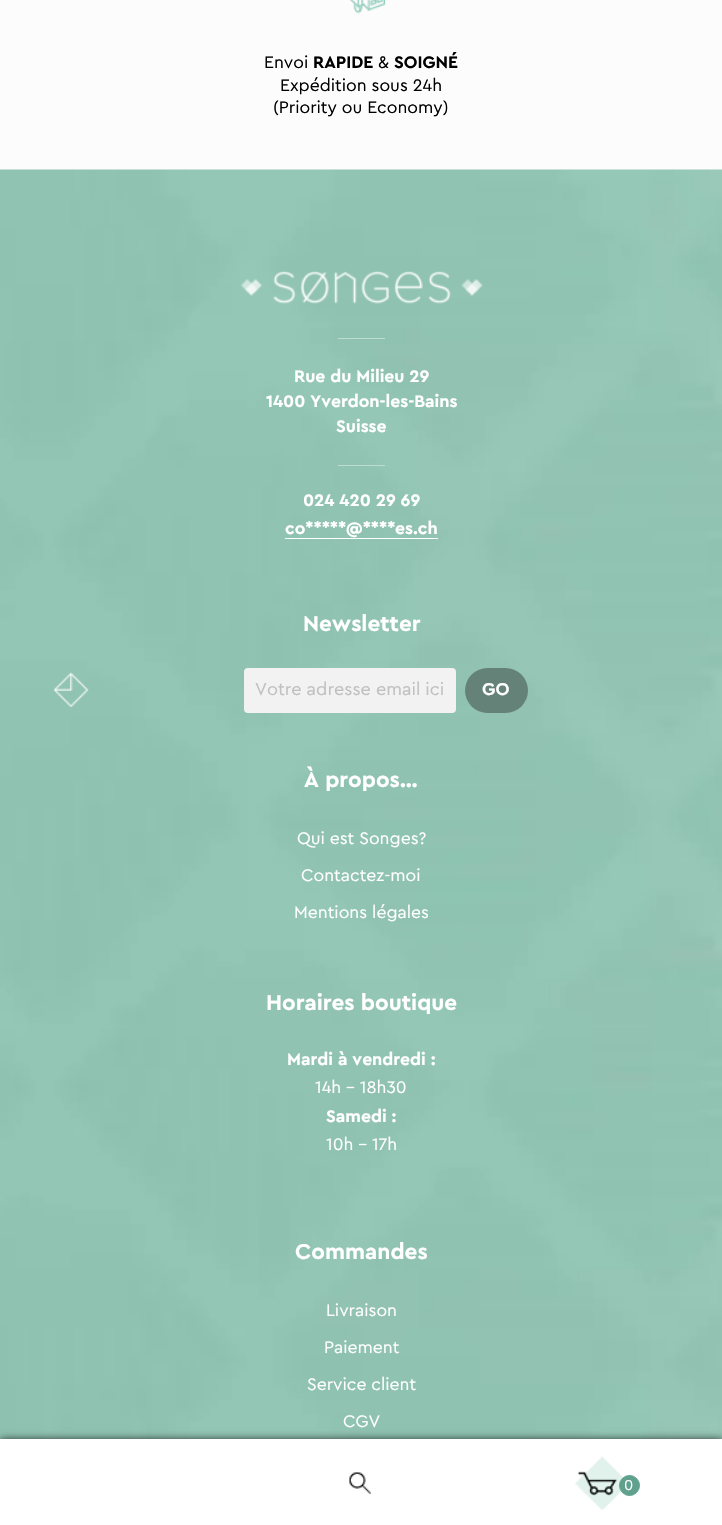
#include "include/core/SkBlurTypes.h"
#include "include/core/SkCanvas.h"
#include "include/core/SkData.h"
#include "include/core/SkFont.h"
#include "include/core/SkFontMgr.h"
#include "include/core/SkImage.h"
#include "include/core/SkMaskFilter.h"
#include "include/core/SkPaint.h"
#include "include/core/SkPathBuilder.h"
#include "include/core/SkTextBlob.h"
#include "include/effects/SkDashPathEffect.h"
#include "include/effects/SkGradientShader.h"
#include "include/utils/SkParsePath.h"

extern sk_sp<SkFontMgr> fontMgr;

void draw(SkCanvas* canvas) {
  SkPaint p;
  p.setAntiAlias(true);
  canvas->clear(SkColorSetRGB(252, 252, 252));
  canvas->drawImageRect(SkImages::DeferredFromEncodedData(SkData::MakeFromFileName("images/1.png")), SkRect::MakeLTRB(350, 0, 386, 14), SkSamplingOptions());
  canvas->drawImageRect(SkImages::DeferredFromEncodedData(SkData::MakeFromFileName("images/2.png")), SkRect::MakeLTRB(0, 169, 722, 1439), SkSamplingOptions());
  canvas->drawImageRect(SkImages::DeferredFromEncodedData(SkData::MakeFromFileName("images/3.png")), SkRect::MakeLTRB(241, 271, 483, 304), SkSamplingOptions());
  p.setColor(SkColorSetRGB(189, 221, 210));
  canvas->drawRect(SkRect::MakeLTRB(338, 338, 385, 339), p);
  canvas->drawRect(SkRect::MakeLTRB(338, 465, 385, 466), p);
  p.setColor(SK_ColorWHITE);
  canvas->drawRect(SkRect::MakeLTRB(285, 538, 438, 539), p);
  canvas->drawImageRect(SkImages::DeferredFromEncodedData(SkData::MakeFromFileName("images/4.png")), SkRect::MakeLTRB(53, 672, 89, 707), SkSamplingOptions());
  p.setColor(SkColorSetRGB(242, 242, 242));
  canvas->drawRoundRect(SkRect::MakeLTRB(244, 668, 456, 713), 4, 4, p);
  p.setColor(SkColorSetRGB(100, 130, 120));
  canvas->drawRoundRect(SkRect::MakeLTRB(465, 668, 528, 713), 22.5f, 22.5f, p);
  p.setColor(SkColorSetARGB(179, 0, 0, 0));
  p.setMaskFilter(SkMaskFilter::MakeBlur(kNormal_SkBlurStyle, 4));
  canvas->drawRect(SkRect::MakeLTRB(0, 1439, 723, 1525), p);
  p.setMaskFilter(nullptr);
  p.setColor(SK_ColorWHITE);
  canvas->drawRect(SkRect::MakeLTRB(0, 1439, 722, 1525), p);
  canvas->drawImageRect(SkImages::DeferredFromEncodedData(SkData::MakeFromFileName("images/5.png")), SkRect::MakeLTRB(349, 1472, 371, 1494), SkSamplingOptions());
  canvas->drawImageRect(SkImages::DeferredFromEncodedData(SkData::MakeFromFileName("images/6.png")), SkRect::MakeLTRB(575, 1456, 624, 1510), SkSamplingOptions());
  p.setColor(SkColorSetRGB(95, 161, 141));
  canvas->drawCircle(629.5f, 1485.5f, 10, p);
  p.setStyle(SkPaint::kStroke_Style);
  p.setStrokeWidth(1);
  canvas->drawCircle(629.5f, 1485.5f, 10, p);
  SkFont font1(fontMgr->matchFamilyStyle("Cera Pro", SkFontStyle::Normal()), 17.5f);
  font1.setSubpixel(true);
  p.setStyle(SkPaint::kFill_Style);
  p.setColor(SK_ColorBLACK);
  canvas->drawString("Envoi", 264, 68, font1, p);
  SkFont font2(fontMgr->matchFamilyStyle("Cera Pro", SkFontStyle::Bold()), 17.5f);
  font2.setSubpixel(true);
  canvas->drawString("RAPIDE", 313, 68, font2, p);
  canvas->drawString("&", 378, 68, font1, p);
  canvas->drawString("SOIGNÉ", 394, 68, font2, p);
  canvas->drawString("Expédition sous 24h", 280, 91, font1, p);
  canvas->drawString("(Priority ou Economy)", 273, 113, font1, p);
  p.setColor(SK_ColorWHITE);
  canvas->drawString("Rue du Milieu 29", 294, 382, font2, p);
  canvas->drawString("1400 Yverdon-les-Bains", 266, 407, font2, p);
  canvas->drawString("Suisse", 336, 432, font2, p);
  canvas->drawString("024 420 29 69", 303, 506, font2, p);
  canvas->drawString("co*****", 285, 534, font2, p);
  canvas->drawString("@****", 346, 534, font2, p);
  canvas->drawString("es.ch", 395, 534, font2, p);
  SkFont font3(fontMgr->matchFamilyStyle("Cera Pro", SkFontStyle::Bold()), 22.5f);
  font3.setSubpixel(true);
  canvas->drawString("Newsletter", 303, 631, font3, p);
  SkFont font4(fontMgr->matchFamilyStyle("Cera Pro", SkFontStyle::Normal()), 18);
  font4.setSubpixel(true);
  p.setColor(SkColorSetRGB(192, 192, 192));
  canvas->drawString("Votre adresse email ici", 255, 695, font4, p);
  SkFont font5(fontMgr->matchFamilyStyle("Cera Pro", SkFontStyle::Bold()), 18);
  font5.setSubpixel(true);
  p.setColor(SK_ColorWHITE);
  canvas->drawString("GO", 482, 695, font5, p);
  canvas->drawString("À propos…", 304, 787, font3, p);
  canvas->drawString("Qui est Songes?", 297, 844, font1, p);
  canvas->drawString("Contactez-moi", 301, 881, font1, p);
  canvas->drawString("Mentions légales", 294, 918, font1, p);
  canvas->drawString("Horaires boutique", 266, 1010, font3, p);
  canvas->drawString("Mardi à vendredi :", 287, 1065, font2, p);
  canvas->drawString("14h – 18h30", 315, 1093, font1, p);
  canvas->drawString("Samedi :", 326, 1122, font2, p);
  canvas->drawString("10h – 17h", 326, 1150, font1, p);
  canvas->drawString("Commandes", 295, 1259, font3, p);
  canvas->drawString("Livraison", 326, 1316, font1, p);
  canvas->drawString("Paiement", 324, 1353, font1, p);
  canvas->drawString("Service client", 307, 1390, font1, p);
  canvas->drawString("CGV", 343, 1427, font1, p);
  SkFont font6(fontMgr->matchFamilyStyle("Cera Pro", SkFontStyle::Normal()), 15);
  font6.setSubpixel(true);
  canvas->drawString("0", 624, 1490, font6, p);
}
